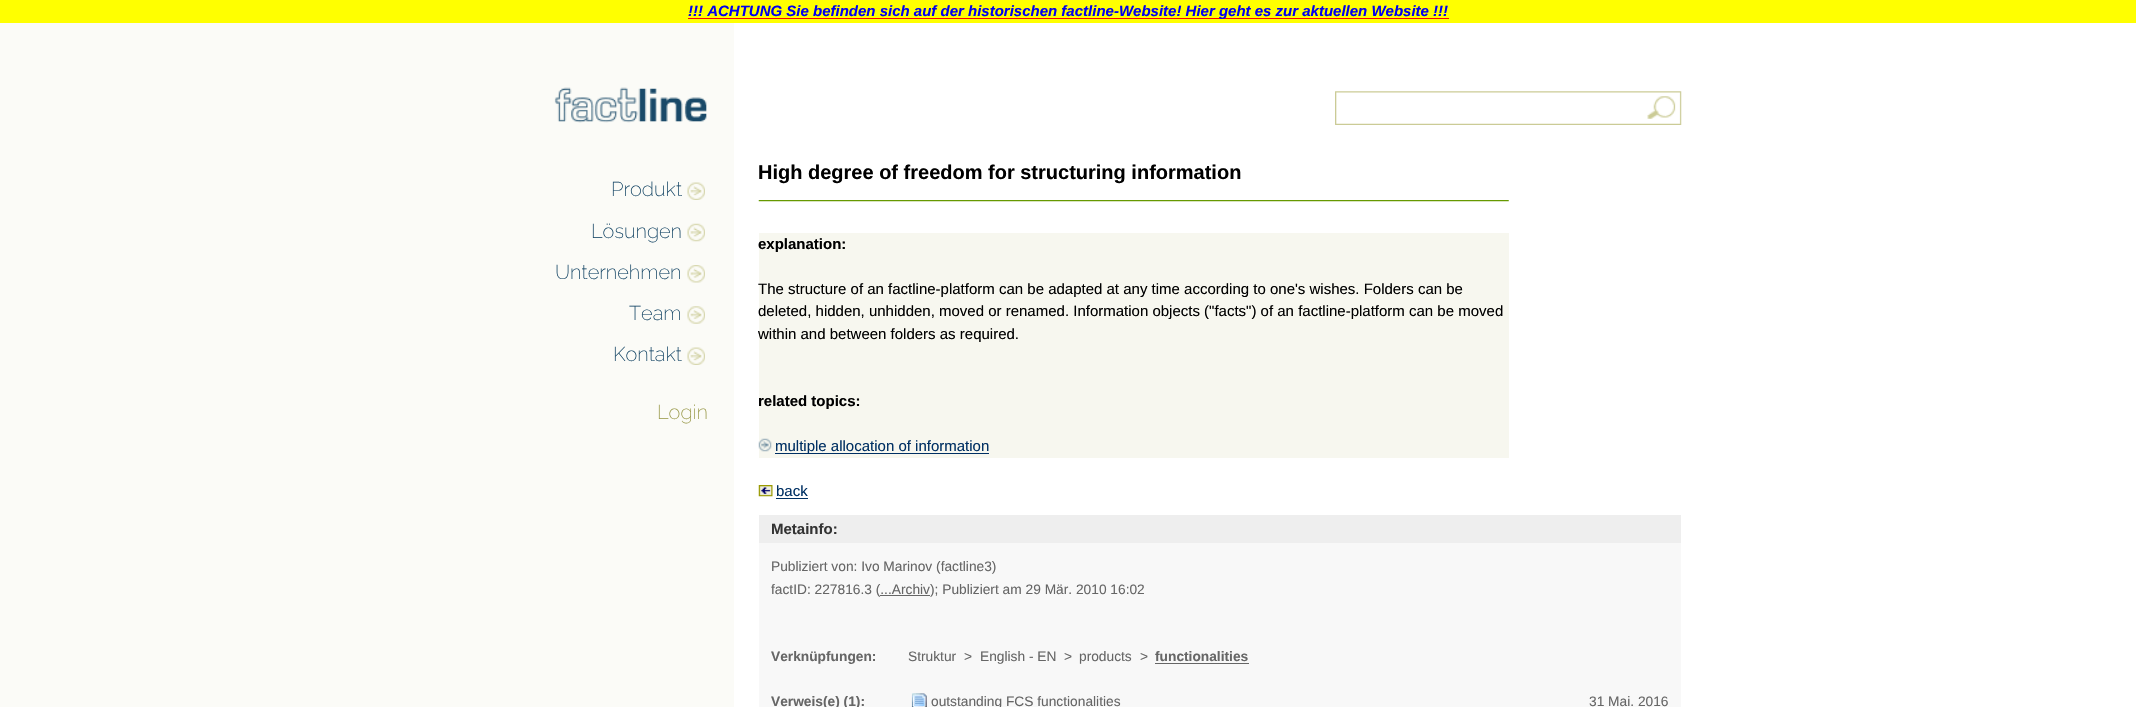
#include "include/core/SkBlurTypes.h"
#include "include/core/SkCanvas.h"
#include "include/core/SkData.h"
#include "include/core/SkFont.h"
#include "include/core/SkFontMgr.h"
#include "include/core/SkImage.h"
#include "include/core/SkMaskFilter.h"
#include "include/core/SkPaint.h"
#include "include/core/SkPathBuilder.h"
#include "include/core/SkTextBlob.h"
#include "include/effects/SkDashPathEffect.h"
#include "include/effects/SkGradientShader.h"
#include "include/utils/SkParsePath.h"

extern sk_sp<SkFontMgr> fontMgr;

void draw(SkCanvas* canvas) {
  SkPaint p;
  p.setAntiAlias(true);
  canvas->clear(SK_ColorWHITE);
  p.setColor(SkColorSetRGB(251, 251, 247));
  canvas->drawRect(SkRect::MakeLTRB(0, 23, 734, 707), p);
  p.setColor(SkColorSetRGB(255, 255, 0));
  canvas->drawRect(SkRect::MakeLTRB(0, 0, 2136, 23), p);
  p.setColor(SkColorSetRGB(255, 0, 0));
  canvas->drawRect(SkRect::MakeLTRB(688, 18, 1449, 19), p);
  canvas->drawImageRect(SkImages::DeferredFromEncodedData(SkData::MakeFromFileName("images/1.png")), SkRect::MakeLTRB(554, 87, 707, 123), SkSamplingOptions());
  canvas->drawImageRect(SkImages::DeferredFromEncodedData(SkData::MakeFromFileName("images/2.png")), SkRect::MakeLTRB(1335, 91, 1682, 125), SkSamplingOptions());
  canvas->drawImageRect(SkImages::DeferredFromEncodedData(SkData::MakeFromFileName("images/3.png")), SkRect::MakeLTRB(687, 182, 705, 200), SkSamplingOptions());
  canvas->drawImageRect(SkImages::DeferredFromEncodedData(SkData::MakeFromFileName("images/4.png")), SkRect::MakeLTRB(687, 223, 705, 242), SkSamplingOptions());
  canvas->drawImageRect(SkImages::DeferredFromEncodedData(SkData::MakeFromFileName("images/5.png")), SkRect::MakeLTRB(687, 265, 705, 283), SkSamplingOptions());
  canvas->drawImageRect(SkImages::DeferredFromEncodedData(SkData::MakeFromFileName("images/6.png")), SkRect::MakeLTRB(687, 306, 705, 324), SkSamplingOptions());
  canvas->drawImageRect(SkImages::DeferredFromEncodedData(SkData::MakeFromFileName("images/3.png")), SkRect::MakeLTRB(687, 347, 705, 365), SkSamplingOptions());
  canvas->drawImageRect(SkImages::DeferredFromEncodedData(SkData::MakeFromFileName("images/7.png")), SkRect::MakeLTRB(758, 200, 1509, 202), SkSamplingOptions());
  p.setColor(SkColorSetRGB(247, 247, 239));
  canvas->drawRect(SkRect::MakeLTRB(759, 233, 1509, 458), p);
  canvas->drawImageRect(SkImages::DeferredFromEncodedData(SkData::MakeFromFileName("images/8.png")), SkRect::MakeLTRB(758, 438, 772, 452), SkSamplingOptions());
  p.setColor(SkColorSetRGB(0, 48, 99));
  canvas->drawRect(SkRect::MakeLTRB(775, 453, 989, 454), p);
  canvas->drawImageRect(SkImages::DeferredFromEncodedData(SkData::MakeFromFileName("images/9.png")), SkRect::MakeLTRB(758, 485, 773, 497), SkSamplingOptions());
  canvas->drawRect(SkRect::MakeLTRB(776, 498, 808, 499), p);
  p.setColor(SkColorSetRGB(248, 248, 248));
  canvas->drawRect(SkRect::MakeLTRB(759, 543, 1681, 707), p);
  p.setColor(SkColorSetRGB(238, 238, 238));
  canvas->drawRect(SkRect::MakeLTRB(759, 515, 1681, 543), p);
  p.setColor(SkColorSetRGB(102, 102, 102));
  canvas->drawRect(SkRect::MakeLTRB(880, 595, 930, 596), p);
  canvas->drawRect(SkRect::MakeLTRB(1155, 663, 1249, 664), p);
  canvas->drawImageRect(SkImages::DeferredFromEncodedData(SkData::MakeFromFileName("images/10.png")), SkRect::MakeLTRB(911, 693, 927, 707), SkSamplingOptions());
  SkFont font1(fontMgr->matchFamilyStyle("Liberation Sans", SkFontStyle::BoldItalic()), 15);
  font1.setSubpixel(true);
  p.setColor(SkColorSetRGB(0, 0, 238));
  canvas->drawString("!!! ACHTUNG Sie befinden sich auf der historischen factline-Website! Hier geht es zur aktuellen Website !!!", 688, 16, font1, p);
  SkFont font2(fontMgr->matchFamilyStyle("Raleway", SkFontStyle(100, SkFontStyle::kNormal_Width, SkFontStyle::kUpright_Slant)), 20);
  font2.setSubpixel(true);
  p.setColor(SkColorSetRGB(25, 73, 104));
  canvas->drawString("Produkt", 611, 196, font2, p);
  canvas->drawString("Lösungen", 591, 238, font2, p);
  canvas->drawString("Unternehmen", 555, 279, font2, p);
  canvas->drawString("Team", 629, 320, font2, p);
  canvas->drawString("Kontakt", 613, 361, font2, p);
  p.setColor(SkColorSetRGB(155, 155, 77));
  canvas->drawString("Login", 657, 419, font2, p);
  SkFont font3(fontMgr->matchFamilyStyle("Liberation Sans", SkFontStyle::Bold()), 20);
  font3.setSubpixel(true);
  p.setColor(SK_ColorBLACK);
  canvas->drawString("High degree of freedom for structuring information", 758, 179, font3, p);
  SkFont font4(fontMgr->matchFamilyStyle("Liberation Sans", SkFontStyle::Bold()), 15);
  font4.setSubpixel(true);
  canvas->drawString("explanation:", 758, 249, font4, p);
  SkFont font5(fontMgr->matchFamilyStyle("Liberation Sans", SkFontStyle::Normal()), 15);
  font5.setSubpixel(true);
  canvas->drawString("The structure of an factline-platform can be adapted at any time according to one's wishes. Folders can be", 758, 294, font5, p);
  canvas->drawString("deleted, hidden, unhidden, moved or renamed. Information objects (\"facts\") of an factline-platform can be moved", 758, 316, font5, p);
  canvas->drawString("within and between folders as required.", 758, 339, font5, p);
  canvas->drawString("related topics:", 758, 406, font4, p);
  p.setColor(SkColorSetRGB(0, 48, 99));
  canvas->drawString("multiple allocation of information", 775, 451, font5, p);
  canvas->drawString("back", 776, 496, font5, p);
  p.setColor(SkColorSetRGB(51, 51, 51));
  canvas->drawString("Metainfo:", 771, 534, font4, p);
  SkFont font6(fontMgr->matchFamilyStyle("Liberation Sans", SkFontStyle::Normal()), 13.75f);
  font6.setSubpixel(true);
  p.setColor(SkColorSetRGB(102, 102, 102));
  canvas->drawString("Publiziert von: Ivo Marinov (factline3)", 771, 571, font6, p);
  canvas->drawString("factID: 227816.3 (...Archiv", 771, 594, font6, p);
  canvas->drawString("); Publiziert am 29 Mär. 2010 16:02", 930, 594, font6, p);
  SkFont font7(fontMgr->matchFamilyStyle("Liberation Sans", SkFontStyle::Bold()), 13.75f);
  font7.setSubpixel(true);
  canvas->drawString("Verknüpfungen:", 771, 661, font7, p);
  canvas->drawString("Struktur", 908, 661, font6, p);
  canvas->drawString(">", 964, 661, font6, p);
  canvas->drawString("English - EN", 980, 661, font6, p);
  canvas->drawString(">", 1064, 661, font6, p);
  canvas->drawString("products", 1079, 661, font6, p);
  canvas->drawString(">", 1140, 661, font6, p);
  canvas->drawString("functionalities", 1155, 661, font7, p);
  canvas->drawString("Verweis(e) (1):", 771, 706, font7, p);
  canvas->drawString("outstanding FCS functionalities", 931, 706, font6, p);
  canvas->drawString("31 Mai. 2016", 1589, 706, font6, p);
}
